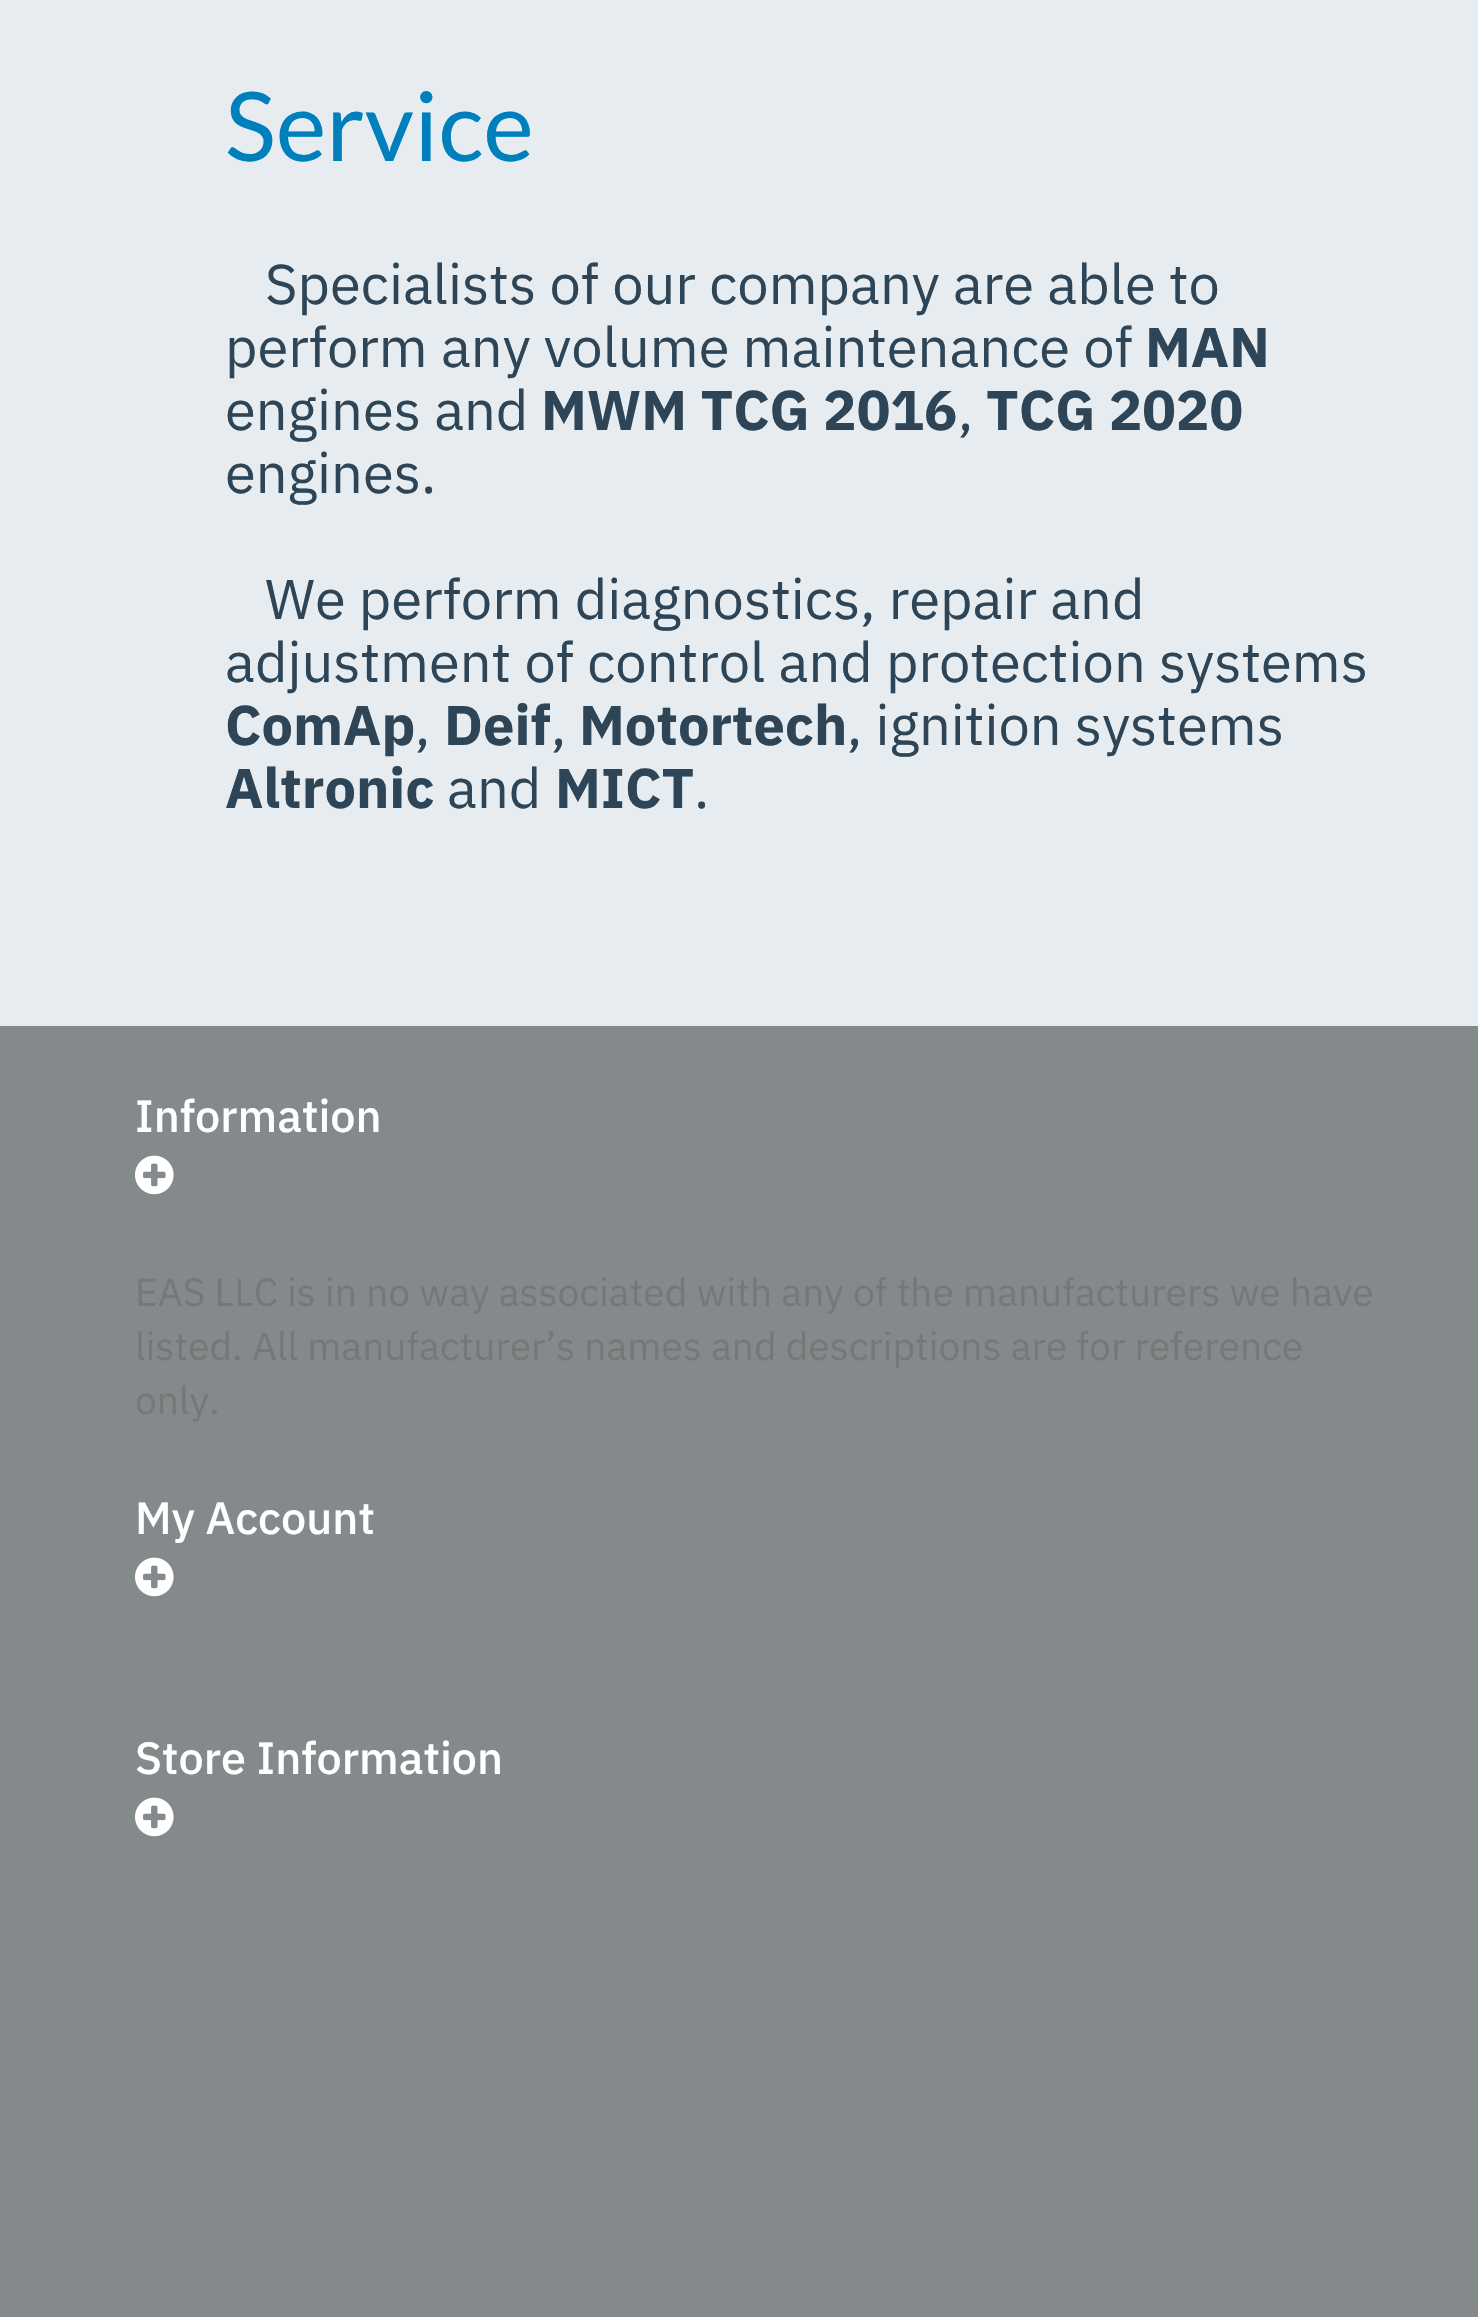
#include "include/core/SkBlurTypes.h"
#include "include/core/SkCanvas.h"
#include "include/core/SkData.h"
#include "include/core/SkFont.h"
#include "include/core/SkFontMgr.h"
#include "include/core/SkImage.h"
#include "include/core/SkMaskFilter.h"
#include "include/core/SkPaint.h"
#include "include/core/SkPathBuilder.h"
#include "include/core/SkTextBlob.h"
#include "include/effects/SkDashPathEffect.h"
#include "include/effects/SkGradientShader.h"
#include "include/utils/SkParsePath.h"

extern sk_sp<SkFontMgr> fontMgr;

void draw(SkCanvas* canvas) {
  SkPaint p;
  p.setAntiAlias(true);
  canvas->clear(SkColorSetRGB(132, 138, 140));
  p.setColor(SkColorSetRGB(230, 236, 240));
  canvas->drawRect(SkRect::MakeLTRB(0, 0, 1478, 1026), p);
  canvas->drawImageRect(SkImages::DeferredFromEncodedData(SkData::MakeFromFileName("images/1.png")), SkRect::MakeLTRB(135, 1155, 174, 1195), SkSamplingOptions());
  canvas->drawImageRect(SkImages::DeferredFromEncodedData(SkData::MakeFromFileName("images/1.png")), SkRect::MakeLTRB(135, 1557, 174, 1597), SkSamplingOptions());
  canvas->drawImageRect(SkImages::DeferredFromEncodedData(SkData::MakeFromFileName("images/1.png")), SkRect::MakeLTRB(135, 1797, 174, 1837), SkSamplingOptions());
  SkFont font1(fontMgr->matchFamilyStyle("Lato", SkFontStyle::Normal()), 96);
  font1.setSubpixel(true);
  p.setColor(SkColorSetRGB(0, 127, 189));
  canvas->drawString("Service", 225, 161, font1, p);
  SkFont font2(fontMgr->matchFamilyStyle("IBM Plex Sans", SkFontStyle::Normal()), 56);
  font2.setSubpixel(true);
  p.setColor(SkColorSetRGB(45, 69, 86));
  canvas->drawString("Specialists of our company are able to", 265, 304, font2, p);
  canvas->drawString("perform any volume maintenance of", 225, 367, font2, p);
  SkFont font3(fontMgr->matchFamilyStyle("IBM Plex Sans", SkFontStyle::Bold()), 56);
  font3.setSubpixel(true);
  canvas->drawString("MAN", 1145, 367, font3, p);
  canvas->drawString("engines and", 225, 430, font2, p);
  canvas->drawString("MWM TCG 2016", 541, 430, font3, p);
  canvas->drawString(",", 958, 430, font2, p);
  canvas->drawString("TCG 2020", 986, 430, font3, p);
  canvas->drawString("engines.", 225, 493, font2, p);
  canvas->drawString("We perform diagnostics, repair and", 265, 619, font2, p);
  canvas->drawString("adjustment of control and protection systems", 225, 682, font2, p);
  canvas->drawString("ComAp", 225, 745, font3, p);
  canvas->drawString(",", 415, 745, font2, p);
  canvas->drawString("Deif", 444, 745, font3, p);
  canvas->drawString(",", 551, 745, font2, p);
  canvas->drawString("Motortech", 579, 745, font3, p);
  canvas->drawString(", ignition systems", 847, 745, font2, p);
  canvas->drawString("Altronic", 225, 808, font3, p);
  canvas->drawString("and", 447, 808, font2, p);
  canvas->drawString("MICT", 555, 808, font3, p);
  canvas->drawString(".", 694, 808, font2, p);
  SkFont font4(fontMgr->matchFamilyStyle("IBM Plex Sans", SkFontStyle(500, SkFontStyle::kNormal_Width, SkFontStyle::kUpright_Slant)), 45);
  font4.setSubpixel(true);
  p.setColor(SK_ColorWHITE);
  canvas->drawString("Information", 135, 1132, font4, p);
  SkFont font5(fontMgr->matchFamilyStyle("IBM Plex Sans", SkFontStyle::Normal()), 39);
  font5.setSubpixel(true);
  p.setColor(SkColorSetRGB(119, 119, 119));
  canvas->drawString("EAS LLC is in no way associated with any of the manufacturers we have", 135, 1306, font5, p);
  canvas->drawString("listed. All manufacturer’s names and descriptions are for reference", 135, 1360, font5, p);
  canvas->drawString("only.", 135, 1414, font5, p);
  p.setColor(SK_ColorWHITE);
  canvas->drawString("My Account", 135, 1534, font4, p);
  canvas->drawString("Store Information", 135, 1774, font4, p);
}
